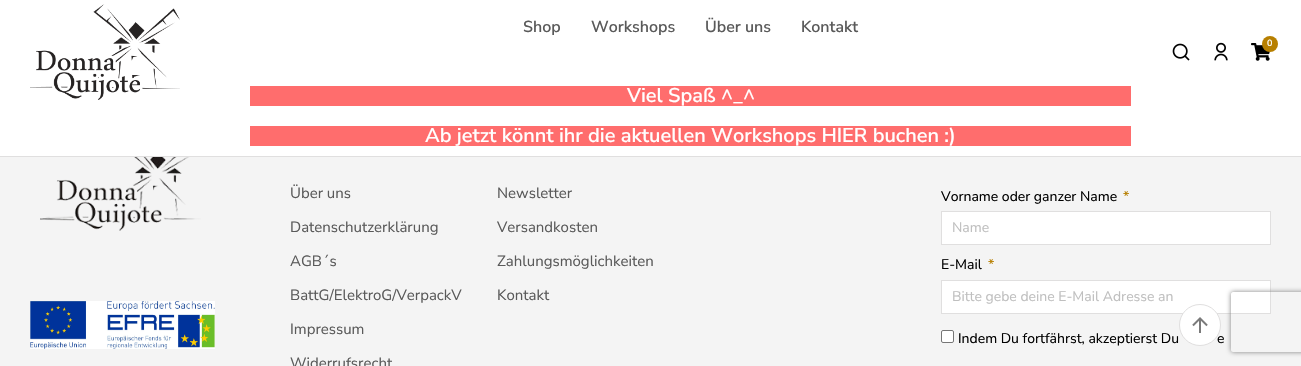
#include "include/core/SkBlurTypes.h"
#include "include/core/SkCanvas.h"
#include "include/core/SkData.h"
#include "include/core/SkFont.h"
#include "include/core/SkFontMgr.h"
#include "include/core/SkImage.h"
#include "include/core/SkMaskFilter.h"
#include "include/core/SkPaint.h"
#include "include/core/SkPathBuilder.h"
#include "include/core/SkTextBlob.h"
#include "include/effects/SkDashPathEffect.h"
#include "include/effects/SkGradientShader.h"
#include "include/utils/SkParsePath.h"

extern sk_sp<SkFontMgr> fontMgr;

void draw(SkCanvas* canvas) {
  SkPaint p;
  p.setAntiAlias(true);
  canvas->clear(SkColorSetRGB(244, 244, 244));
  p.setColor(SK_ColorWHITE);
  canvas->drawRect(SkRect::MakeLTRB(0, 0, 1301, 156), p);
  p.setColor(SkColorSetRGB(224, 223, 223));
  canvas->drawRect(SkRect::MakeLTRB(0, 156, 1301, 157), p);
  canvas->drawImageRect(SkImages::DeferredFromEncodedData(SkData::MakeFromFileName("images/1.png")), SkRect::MakeLTRB(30, 4, 180, 100), SkSamplingOptions());
  p.setColor(SkColorSetRGB(255, 109, 109));
  canvas->drawRect(SkRect::MakeLTRB(250, 86, 1131, 106), p);
  canvas->drawRect(SkRect::MakeLTRB(250, 126, 1131, 146), p);
  canvas->drawImageRect(SkImages::DeferredFromEncodedData(SkData::MakeFromFileName("images/2.png")), SkRect::MakeLTRB(1172, 43, 1190, 61), SkSamplingOptions());
  canvas->drawImageRect(SkImages::DeferredFromEncodedData(SkData::MakeFromFileName("images/3.png")), SkRect::MakeLTRB(1214, 42, 1228, 61), SkSamplingOptions());
  canvas->drawImageRect(SkImages::DeferredFromEncodedData(SkData::MakeFromFileName("images/4.png")), SkRect::MakeLTRB(1251, 43, 1270, 61), SkSamplingOptions());
  p.setColor(SkColorSetRGB(183, 127, 0));
  canvas->drawCircle(1270, 44, 8, p);
  canvas->drawImageRect(SkImages::DeferredFromEncodedData(SkData::MakeFromFileName("images/5.png")), SkRect::MakeLTRB(40, 157, 201, 231), SkSamplingOptions());
  canvas->drawImageRect(SkImages::DeferredFromEncodedData(SkData::MakeFromFileName("images/6.png")), SkRect::MakeLTRB(30, 301, 215, 349), SkSamplingOptions());
  p.setColor(SK_ColorWHITE);
  canvas->drawRect(SkRect::MakeLTRB(941.5f, 211.5f, 1270.5f, 244.5f), p);
  p.setStyle(SkPaint::kStroke_Style);
  p.setStrokeWidth(1);
  p.setColor(SkColorSetRGB(224, 223, 223));
  canvas->drawRect(SkRect::MakeLTRB(941.5f, 211.5f, 1270.5f, 244.5f), p);
  p.setStyle(SkPaint::kFill_Style);
  p.setColor(SK_ColorWHITE);
  canvas->drawRect(SkRect::MakeLTRB(941.5f, 280.5f, 1270.5f, 313.5f), p);
  p.setStyle(SkPaint::kStroke_Style);
  p.setColor(SkColorSetRGB(224, 223, 223));
  canvas->drawRect(SkRect::MakeLTRB(941.5f, 280.5f, 1270.5f, 313.5f), p);
  p.setStyle(SkPaint::kFill_Style);
  p.setColor(SK_ColorWHITE);
  canvas->drawRoundRect(SkRect::MakeLTRB(941.5f, 330.5f, 953.5f, 342.5f), 1.5f, 1.5f, p);
  p.setStyle(SkPaint::kStroke_Style);
  p.setColor(SkColorSetRGB(118, 118, 118));
  canvas->drawRoundRect(SkRect::MakeLTRB(941.5f, 330.5f, 953.5f, 342.5f), 1.5f, 1.5f, p);
  canvas->save();
  canvas->clipPath(SkPathBuilder(SkPathFillType::kEvenOdd).moveTo(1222, 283).lineTo(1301, 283).lineTo(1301, 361).lineTo(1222, 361).close().moveTo(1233, 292).lineTo(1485, 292).cubicTo(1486, 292, 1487, 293, 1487, 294).lineTo(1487, 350).cubicTo(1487, 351, 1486, 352, 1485, 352).lineTo(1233, 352).cubicTo(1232, 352, 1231, 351, 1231, 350).lineTo(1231, 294).cubicTo(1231, 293, 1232, 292, 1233, 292).close().detach(), true);
  p.setStyle(SkPaint::kFill_Style);
  p.setColor(SkColorSetRGB(128, 128, 128));
  p.setMaskFilter(SkMaskFilter::MakeBlur(kNormal_SkBlurStyle, 2.5f));
  canvas->drawRoundRect(SkRect::MakeLTRB(1231, 292, 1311, 352), 2, 2, p);
  p.setMaskFilter(nullptr);
  canvas->restore();
  SkFont font1(fontMgr->matchFamilyStyle("Nunito Sans", SkFontStyle(600, SkFontStyle::kNormal_Width, SkFontStyle::kUpright_Slant)), 16);
  font1.setSubpixel(true);
  p.setColor(SkColorSetRGB(90, 90, 90));
  canvas->drawString("Shop", 523, 32, font1, p);
  canvas->drawString("Workshops", 591, 32, font1, p);
  canvas->drawString("Über uns", 705, 32, font1, p);
  canvas->drawString("Kontakt", 801, 32, font1, p);
  SkFont font2(fontMgr->matchFamilyStyle("Nunito Sans", SkFontStyle(600, SkFontStyle::kNormal_Width, SkFontStyle::kUpright_Slant)), 20);
  font2.setSubpixel(true);
  p.setColor(SK_ColorWHITE);
  canvas->drawString("Viel Spaß ^_^", 627, 102, font2, p);
  canvas->drawString("Ab jetzt könnt ihr die aktuellen Workshops HIER buchen :)", 425, 142, font2, p);
  SkFont font3(fontMgr->matchFamilyStyle("Nunito Sans", SkFontStyle(600, SkFontStyle::kNormal_Width, SkFontStyle::kUpright_Slant)), 9);
  font3.setSubpixel(true);
  canvas->drawString("0", 1267, 46, font3, p);
  SkFont font4(fontMgr->matchFamilyStyle("Nunito Sans", SkFontStyle::Normal()), 15);
  font4.setSubpixel(true);
  p.setColor(SkColorSetRGB(90, 90, 90));
  canvas->drawString("Über uns", 290, 198, font4, p);
  canvas->drawString("Datenschutzerklärung", 290, 232, font4, p);
  canvas->drawString("AGB´s", 290, 266, font4, p);
  canvas->drawString("BattG/ElektroG/VerpackV", 290, 300, font4, p);
  canvas->drawString("Impressum", 290, 334, font4, p);
  canvas->drawString("Widerrufsrecht", 290, 368, font4, p);
  canvas->drawString("Newsletter", 497, 198, font4, p);
  canvas->drawString("Versandkosten", 497, 232, font4, p);
  canvas->drawString("Zahlungsmöglichkeiten", 497, 266, font4, p);
  canvas->drawString("Kontakt", 497, 300, font4, p);
  SkFont font5(fontMgr->matchFamilyStyle("Nunito Sans", SkFontStyle::Normal()), 14);
  font5.setSubpixel(true);
  p.setColor(SK_ColorBLACK);
  canvas->drawString("Vorname oder ganzer Name", 941, 201, font5, p);
  p.setColor(SkColorSetRGB(183, 127, 0));
  canvas->drawString("*", 1123, 201, font5, p);
  p.setColor(SkColorSetRGB(191, 191, 191));
  canvas->drawString("Name", 952, 232, font5, p);
  p.setColor(SK_ColorBLACK);
  canvas->drawString("E-Mail", 941, 269, font5, p);
  p.setColor(SkColorSetRGB(183, 127, 0));
  canvas->drawString("*", 988, 269, font5, p);
  p.setColor(SkColorSetRGB(191, 191, 191));
  canvas->drawString("Bitte gebe deine E-Mail Adresse an", 952, 301, font5, p);
  p.setColor(SK_ColorBLACK);
  canvas->drawString("Indem Du fortfährst, akzeptierst Du", 958, 343, font5, p);
  canvas->drawString("e", 1217, 343, font5, p);
  p.setColor(SK_ColorWHITE);
  canvas->drawCircle(1200, 325, 20.5f, p);
  p.setStyle(SkPaint::kStroke_Style);
  p.setColor(SkColorSetRGB(224, 223, 223));
  canvas->drawCircle(1200, 325, 20.5f, p);
  canvas->drawImageRect(SkImages::DeferredFromEncodedData(SkData::MakeFromFileName("images/7.png")), SkRect::MakeLTRB(1192, 317, 1208, 333), SkSamplingOptions());
}
